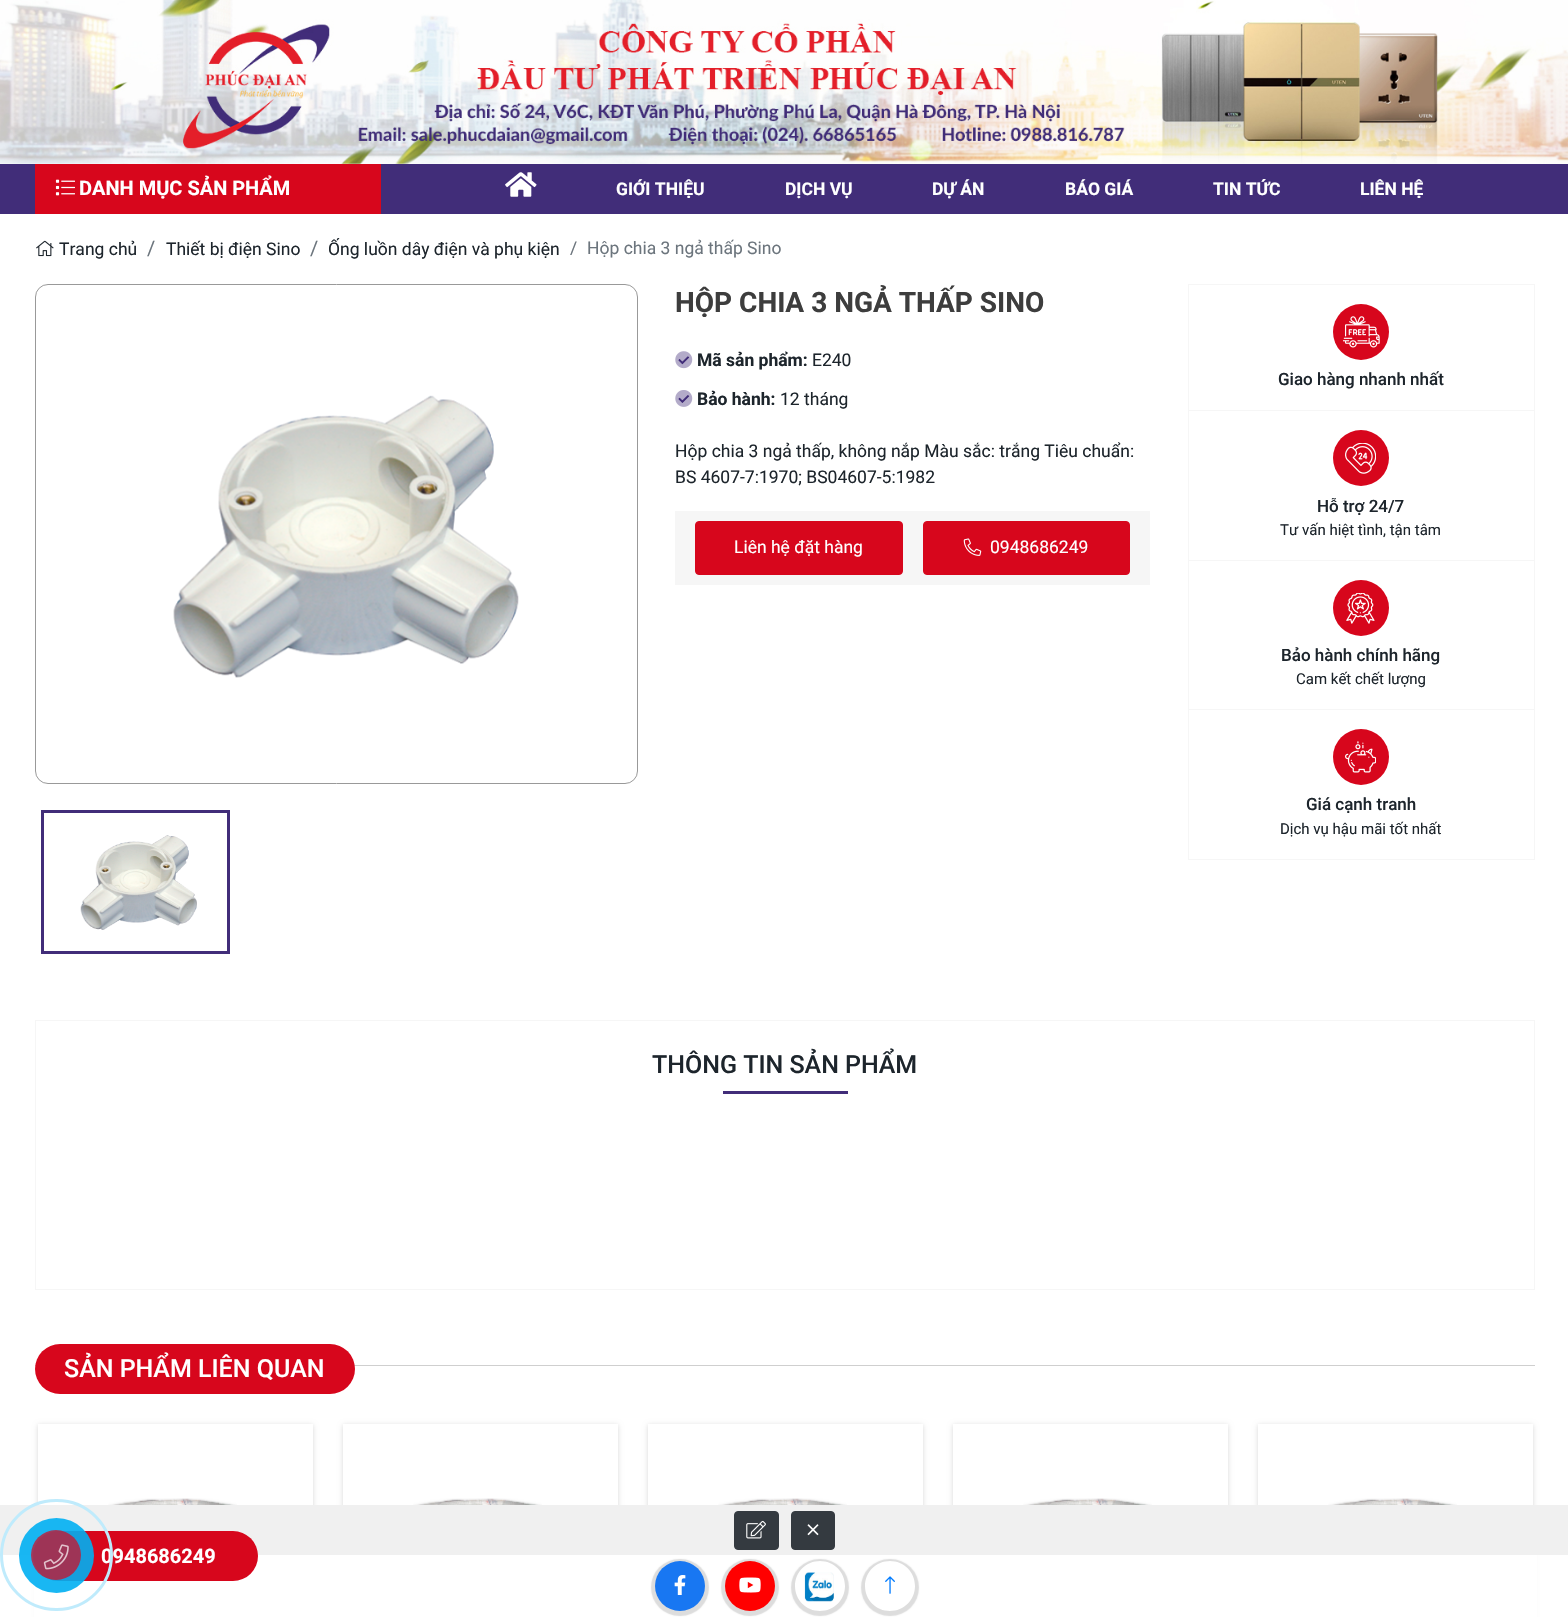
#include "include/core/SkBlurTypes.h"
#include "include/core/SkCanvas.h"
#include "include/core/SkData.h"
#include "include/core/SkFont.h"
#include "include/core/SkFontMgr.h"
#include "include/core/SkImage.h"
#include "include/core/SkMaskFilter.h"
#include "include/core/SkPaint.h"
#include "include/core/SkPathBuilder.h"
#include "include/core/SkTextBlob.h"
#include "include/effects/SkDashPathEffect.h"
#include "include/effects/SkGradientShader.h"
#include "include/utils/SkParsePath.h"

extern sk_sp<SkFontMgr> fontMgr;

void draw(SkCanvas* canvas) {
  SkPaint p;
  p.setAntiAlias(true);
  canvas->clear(SK_ColorWHITE);
  canvas->drawImageRect(SkImages::DeferredFromEncodedData(SkData::MakeFromFileName("images/1.png")), SkRect::MakeLTRB(0, 0, 1568, 164), SkSamplingOptions());
  p.setColor(SkColorSetRGB(65, 45, 121));
  canvas->drawRect(SkRect::MakeLTRB(0, 164, 1568, 214), p);
  p.setColor(SkColorSetRGB(215, 6, 28));
  canvas->drawRect(SkRect::MakeLTRB(35, 164, 381, 214), p);
  canvas->drawImageRect(SkImages::DeferredFromEncodedData(SkData::MakeFromFileName("images/2.png")), SkRect::MakeLTRB(55, 179, 75, 196), SkSamplingOptions());
  canvas->drawImageRect(SkImages::DeferredFromEncodedData(SkData::MakeFromFileName("images/3.png")), SkRect::MakeLTRB(505, 172, 537, 197), SkSamplingOptions());
  canvas->drawImageRect(SkImages::DeferredFromEncodedData(SkData::MakeFromFileName("images/4.png")), SkRect::MakeLTRB(36, 240, 54, 257), SkSamplingOptions());
  p.setStyle(SkPaint::kStroke_Style);
  p.setStrokeWidth(1);
  p.setColor(SkColorSetRGB(153, 153, 153));
  canvas->drawRoundRect(SkRect::MakeLTRB(35.5f, 284.5f, 637.5f, 783.5f), 12.5f, 12.5f, p);
  canvas->drawImageRect(SkImages::DeferredFromEncodedData(SkData::MakeFromFileName("images/5.png")), SkRect::MakeLTRB(173, 395, 519, 678), SkSamplingOptions());
  p.setStrokeWidth(3);
  p.setColor(SkColorSetRGB(65, 45, 121));
  canvas->drawRect(SkRect::MakeLTRB(42.5f, 811.5f, 228.5f, 952.5f), p);
  canvas->drawImageRect(SkImages::DeferredFromEncodedData(SkData::MakeFromFileName("images/6.png")), SkRect::MakeLTRB(80, 835, 197, 930), SkSamplingOptions());
  canvas->drawImageRect(SkImages::DeferredFromEncodedData(SkData::MakeFromFileName("images/8.png")), SkRect::MakeLTRB(678, 356, 690, 365), SkSamplingOptions());
  canvas->drawImageRect(SkImages::DeferredFromEncodedData(SkData::MakeFromFileName("images/7.png")), SkRect::MakeLTRB(675, 351, 693, 369), SkSamplingOptions());
  canvas->drawImageRect(SkImages::DeferredFromEncodedData(SkData::MakeFromFileName("images/10.png")), SkRect::MakeLTRB(678, 395, 690, 403), SkSamplingOptions());
  canvas->drawImageRect(SkImages::DeferredFromEncodedData(SkData::MakeFromFileName("images/9.png")), SkRect::MakeLTRB(675, 390, 693, 407), SkSamplingOptions());
  p.setStyle(SkPaint::kFill_Style);
  p.setColor(SkColorSetRGB(246, 246, 246));
  canvas->drawRect(SkRect::MakeLTRB(675, 511, 1150, 585), p);
  p.setColor(SkColorSetRGB(215, 6, 28));
  canvas->drawRoundRect(SkRect::MakeLTRB(695.5f, 521.5f, 902.5f, 574.5f), 3.5f, 3.5f, p);
  p.setStyle(SkPaint::kStroke_Style);
  p.setStrokeWidth(1);
  canvas->drawRoundRect(SkRect::MakeLTRB(695.5f, 521.5f, 902.5f, 574.5f), 3.5f, 3.5f, p);
  p.setStyle(SkPaint::kFill_Style);
  canvas->drawRoundRect(SkRect::MakeLTRB(923.5f, 521.5f, 1129.5f, 574.5f), 3.5f, 3.5f, p);
  p.setStyle(SkPaint::kStroke_Style);
  canvas->drawRoundRect(SkRect::MakeLTRB(923.5f, 521.5f, 1129.5f, 574.5f), 3.5f, 3.5f, p);
  canvas->drawImageRect(SkImages::DeferredFromEncodedData(SkData::MakeFromFileName("images/11.png")), SkRect::MakeLTRB(963, 538, 982, 556), SkSamplingOptions());
  p.setColor(SkColorSetRGB(246, 246, 246));
  canvas->drawRect(SkRect::MakeLTRB(1188.5f, 284.5f, 1534.5f, 859.5f), p);
  p.setStyle(SkPaint::kFill_Style);
  canvas->drawRect(SkRect::MakeLTRB(1189, 410, 1534, 411), p);
  p.setColor(SkColorSetRGB(215, 6, 28));
  canvas->drawCircle(1361, 332, 28, p);
  canvas->drawImageRect(SkImages::DeferredFromEncodedData(SkData::MakeFromFileName("images/12.png")), SkRect::MakeLTRB(1343, 316, 1380, 348), SkSamplingOptions());
  p.setColor(SkColorSetRGB(246, 246, 246));
  canvas->drawRect(SkRect::MakeLTRB(1189, 560, 1534, 561), p);
  p.setColor(SkColorSetRGB(215, 6, 28));
  canvas->drawCircle(1361, 458, 28, p);
  canvas->drawImageRect(SkImages::DeferredFromEncodedData(SkData::MakeFromFileName("images/13.png")), SkRect::MakeLTRB(1345, 443, 1376, 474), SkSamplingOptions());
  p.setColor(SkColorSetRGB(246, 246, 246));
  canvas->drawRect(SkRect::MakeLTRB(1189, 709, 1534, 710), p);
  p.setColor(SkColorSetRGB(215, 6, 28));
  canvas->drawCircle(1361, 608, 28, p);
  canvas->drawImageRect(SkImages::DeferredFromEncodedData(SkData::MakeFromFileName("images/14.png")), SkRect::MakeLTRB(1346, 593, 1375, 624), SkSamplingOptions());
  canvas->drawCircle(1361, 757, 28, p);
  canvas->drawImageRect(SkImages::DeferredFromEncodedData(SkData::MakeFromFileName("images/15.png")), SkRect::MakeLTRB(1345, 741, 1376, 773), SkSamplingOptions());
  p.setStyle(SkPaint::kStroke_Style);
  p.setColor(SkColorSetRGB(246, 246, 246));
  canvas->drawRect(SkRect::MakeLTRB(35.5f, 1020.5f, 1534.5f, 1289.5f), p);
  p.setStyle(SkPaint::kFill_Style);
  p.setColor(SkColorSetRGB(65, 45, 121));
  canvas->drawRect(SkRect::MakeLTRB(723, 1091, 848, 1094), p);
  p.setColor(SkColorSetRGB(207, 207, 207));
  canvas->drawRect(SkRect::MakeLTRB(35, 1365, 1535, 1366), p);
  p.setColor(SkColorSetRGB(215, 6, 28));
  canvas->drawRoundRect(SkRect::MakeLTRB(35, 1344, 355, 1394), 25, 25, p);
  p.setColor(SkColorSetARGB(38, 0, 0, 0));
  p.setMaskFilter(SkMaskFilter::MakeBlur(kNormal_SkBlurStyle, 2.5f));
  canvas->drawRect(SkRect::MakeLTRB(38, 1425, 313, 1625), p);
  p.setMaskFilter(nullptr);
  p.setColor(SK_ColorWHITE);
  canvas->drawRect(SkRect::MakeLTRB(38, 1424, 313, 1505), p);
  canvas->drawImageRect(SkImages::DeferredFromEncodedData(SkData::MakeFromFileName("images/16.png")), SkRect::MakeLTRB(108, 1498, 237, 1505), SkSamplingOptions());
  p.setColor(SkColorSetARGB(38, 0, 0, 0));
  p.setMaskFilter(SkMaskFilter::MakeBlur(kNormal_SkBlurStyle, 2.5f));
  canvas->drawRect(SkRect::MakeLTRB(343, 1425, 618, 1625), p);
  p.setMaskFilter(nullptr);
  p.setColor(SK_ColorWHITE);
  canvas->drawRect(SkRect::MakeLTRB(343, 1424, 618, 1505), p);
  canvas->drawImageRect(SkImages::DeferredFromEncodedData(SkData::MakeFromFileName("images/16.png")), SkRect::MakeLTRB(413, 1498, 542, 1505), SkSamplingOptions());
  p.setColor(SkColorSetARGB(38, 0, 0, 0));
  p.setMaskFilter(SkMaskFilter::MakeBlur(kNormal_SkBlurStyle, 2.5f));
  canvas->drawRect(SkRect::MakeLTRB(648, 1425, 923, 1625), p);
  p.setMaskFilter(nullptr);
  p.setColor(SK_ColorWHITE);
  canvas->drawRect(SkRect::MakeLTRB(648, 1424, 923, 1505), p);
  canvas->drawImageRect(SkImages::DeferredFromEncodedData(SkData::MakeFromFileName("images/16.png")), SkRect::MakeLTRB(718, 1498, 847, 1505), SkSamplingOptions());
  p.setColor(SkColorSetARGB(38, 0, 0, 0));
  p.setMaskFilter(SkMaskFilter::MakeBlur(kNormal_SkBlurStyle, 2.5f));
  canvas->drawRect(SkRect::MakeLTRB(953, 1425, 1228, 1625), p);
  p.setMaskFilter(nullptr);
  p.setColor(SK_ColorWHITE);
  canvas->drawRect(SkRect::MakeLTRB(953, 1424, 1228, 1505), p);
  canvas->drawImageRect(SkImages::DeferredFromEncodedData(SkData::MakeFromFileName("images/16.png")), SkRect::MakeLTRB(1023, 1498, 1152, 1505), SkSamplingOptions());
  p.setColor(SkColorSetARGB(38, 0, 0, 0));
  p.setMaskFilter(SkMaskFilter::MakeBlur(kNormal_SkBlurStyle, 2.5f));
  canvas->drawRect(SkRect::MakeLTRB(1258, 1425, 1533, 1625), p);
  p.setMaskFilter(nullptr);
  p.setColor(SK_ColorWHITE);
  canvas->drawRect(SkRect::MakeLTRB(1258, 1424, 1533, 1505), p);
  canvas->drawImageRect(SkImages::DeferredFromEncodedData(SkData::MakeFromFileName("images/16.png")), SkRect::MakeLTRB(1328, 1498, 1457, 1505), SkSamplingOptions());
  canvas->drawRect(SkRect::MakeLTRB(34, 1555, 1537, 1617), p);
  p.setColor(SkColorSetRGB(221, 221, 221));
  p.setMaskFilter(SkMaskFilter::MakeBlur(kNormal_SkBlurStyle, 0.5f));
  canvas->drawRoundRect(SkRect::MakeLTRB(651, 1559, 709, 1616), 28.5f, 28.5f, p);
  p.setMaskFilter(nullptr);
  p.setColor(SkColorSetRGB(24, 119, 242));
  canvas->drawCircle(680, 1586, 25, p);
  canvas->drawImageRect(SkImages::DeferredFromEncodedData(SkData::MakeFromFileName("images/17.png")), SkRect::MakeLTRB(674, 1575, 686, 1595), SkSamplingOptions());
  p.setColor(SkColorSetRGB(221, 221, 221));
  p.setMaskFilter(SkMaskFilter::MakeBlur(kNormal_SkBlurStyle, 0.5f));
  canvas->drawRoundRect(SkRect::MakeLTRB(721, 1559, 779, 1616), 28.5f, 28.5f, p);
  p.setMaskFilter(nullptr);
  p.setColor(SkColorSetRGB(255, 0, 0));
  canvas->drawCircle(750, 1586, 25, p);
  canvas->drawImageRect(SkImages::DeferredFromEncodedData(SkData::MakeFromFileName("images/18.png")), SkRect::MakeLTRB(739, 1577, 761, 1593), SkSamplingOptions());
  canvas->save();
  canvas->clipPath(SkPathBuilder(SkPathFillType::kEvenOdd).moveTo(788, 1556).lineTo(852, 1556).lineTo(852, 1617).lineTo(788, 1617).close().moveTo(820, 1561).cubicTo(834, 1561, 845, 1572, 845, 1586).cubicTo(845, 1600, 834, 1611, 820, 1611).cubicTo(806, 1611, 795, 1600, 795, 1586).cubicTo(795, 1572, 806, 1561, 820, 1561).close().detach(), true);
  p.setColor(SkColorSetRGB(221, 221, 221));
  p.setMaskFilter(SkMaskFilter::MakeBlur(kNormal_SkBlurStyle, 0.5f));
  canvas->drawRoundRect(SkRect::MakeLTRB(791, 1559, 849, 1616), 28.5f, 28.5f, p);
  p.setMaskFilter(nullptr);
  canvas->restore();
  canvas->drawImageRect(SkImages::DeferredFromEncodedData(SkData::MakeFromFileName("images/19.png")), SkRect::MakeLTRB(804, 1572, 834, 1602), SkSamplingOptions());
  canvas->save();
  canvas->clipPath(SkPathBuilder(SkPathFillType::kEvenOdd).moveTo(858, 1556).lineTo(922, 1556).lineTo(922, 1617).lineTo(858, 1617).close().moveTo(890, 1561).cubicTo(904, 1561, 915, 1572, 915, 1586).cubicTo(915, 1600, 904, 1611, 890, 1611).cubicTo(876, 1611, 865, 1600, 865, 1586).cubicTo(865, 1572, 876, 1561, 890, 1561).close().detach(), true);
  p.setMaskFilter(SkMaskFilter::MakeBlur(kNormal_SkBlurStyle, 0.5f));
  canvas->drawRoundRect(SkRect::MakeLTRB(861, 1559, 919, 1616), 28.5f, 28.5f, p);
  p.setMaskFilter(nullptr);
  canvas->restore();
  canvas->drawImageRect(SkImages::DeferredFromEncodedData(SkData::MakeFromFileName("images/20.png")), SkRect::MakeLTRB(885, 1576, 895, 1594), SkSamplingOptions());
  p.setColor(SkColorSetRGB(240, 240, 240));
  canvas->drawRect(SkRect::MakeLTRB(0, 1505, 1568, 1555), p);
  p.setColor(SkColorSetRGB(52, 58, 64));
  canvas->drawRoundRect(SkRect::MakeLTRB(734.5f, 1511.5f, 778.5f, 1549.5f), 3.5f, 3.5f, p);
  p.setStyle(SkPaint::kStroke_Style);
  canvas->drawRoundRect(SkRect::MakeLTRB(734.5f, 1511.5f, 778.5f, 1549.5f), 3.5f, 3.5f, p);
  canvas->drawImageRect(SkImages::DeferredFromEncodedData(SkData::MakeFromFileName("images/21.png")), SkRect::MakeLTRB(746, 1520, 766, 1539), SkSamplingOptions());
  p.setStyle(SkPaint::kFill_Style);
  canvas->drawRoundRect(SkRect::MakeLTRB(791.5f, 1511.5f, 834.5f, 1549.5f), 3.5f, 3.5f, p);
  p.setStyle(SkPaint::kStroke_Style);
  canvas->drawRoundRect(SkRect::MakeLTRB(791.5f, 1511.5f, 834.5f, 1549.5f), 3.5f, 3.5f, p);
  canvas->drawImageRect(SkImages::DeferredFromEncodedData(SkData::MakeFromFileName("images/22.png")), SkRect::MakeLTRB(807, 1524, 819, 1536), SkSamplingOptions());
  p.setStyle(SkPaint::kFill_Style);
  p.setColor(SkColorSetRGB(215, 6, 28));
  canvas->drawRoundRect(SkRect::MakeLTRB(33, 1531, 258, 1581), 25, 25, p);
  SkFont font1(fontMgr->matchFamilyStyle("Roboto", SkFontStyle::Bold()), 20);
  font1.setSubpixel(true);
  p.setColor(SK_ColorWHITE);
  canvas->drawString("DANH MỤC SẢN PHẨM", 79, 195, font1, p);
  SkFont font2(fontMgr->matchFamilyStyle("Roboto", SkFontStyle::Bold()), 17.5f);
  font2.setSubpixel(true);
  canvas->drawString("GIỚI THIỆU", 616, 195, font2, p);
  canvas->drawString("DỊCH VỤ", 785, 195, font2, p);
  canvas->drawString("DỰ ÁN", 932, 195, font2, p);
  canvas->drawString("BÁO GIÁ", 1065, 195, font2, p);
  canvas->drawString("TIN TỨC", 1213, 195, font2, p);
  canvas->drawString("LIÊN HỆ", 1360, 195, font2, p);
  SkFont font3(fontMgr->matchFamilyStyle("Roboto", SkFontStyle::Normal()), 17.5f);
  font3.setSubpixel(true);
  p.setColor(SkColorSetRGB(29, 37, 44));
  canvas->drawString("Trang chủ", 59, 255, font3, p);
  SkFont font4(fontMgr->matchFamilyStyle("Roboto", SkFontStyle::Normal()), 20);
  font4.setSubpixel(true);
  p.setColor(SkColorSetRGB(108, 117, 125));
  canvas->drawString("/", 147, 255, font4, p);
  p.setColor(SkColorSetRGB(29, 37, 44));
  canvas->drawString("Thiết bị điện Sino", 166, 255, font3, p);
  p.setColor(SkColorSetRGB(108, 117, 125));
  canvas->drawString("/", 310, 255, font4, p);
  p.setColor(SkColorSetRGB(29, 37, 44));
  canvas->drawString("Ống luồn dây điện và phụ kiện", 328, 255, font3, p);
  p.setColor(SkColorSetRGB(108, 117, 125));
  canvas->drawString("/", 570, 254, font3, p);
  canvas->drawString("Hộp chia 3 ngả thấp Sino", 587, 254, font3, p);
  SkFont font5(fontMgr->matchFamilyStyle("Roboto", SkFontStyle::Bold()), 28);
  font5.setSubpixel(true);
  p.setColor(SkColorSetRGB(61, 61, 61));
  canvas->drawString("HỘP CHIA 3 NGẢ THẤP SINO", 675, 312, font5, p);
  p.setColor(SkColorSetRGB(29, 37, 44));
  canvas->drawString("Mã sản phẩm:", 697, 366, font2, p);
  canvas->drawString("E240", 812, 366, font3, p);
  canvas->drawString("Bảo hành:", 697, 405, font2, p);
  canvas->drawString("12 tháng", 780, 405, font3, p);
  canvas->drawString("Hộp chia 3 ngả thấp, không nắp Màu sắc: trắng Tiêu chuẩn:", 675, 457, font3, p);
  canvas->drawString("BS 4607-7:1970; BS04607-5:1982", 675, 483, font3, p);
  p.setColor(SK_ColorWHITE);
  canvas->drawString("Liên hệ đặt hàng", 734, 553, font3, p);
  canvas->drawString("0948686249", 990, 553, font3, p);
  SkFont font6(fontMgr->matchFamilyStyle("Roboto", SkFontStyle(500, SkFontStyle::kNormal_Width, SkFontStyle::kUpright_Slant)), 17);
  font6.setSubpixel(true);
  p.setColor(SkColorSetRGB(29, 37, 44));
  canvas->drawString("Giao hàng nhanh nhất", 1278, 385, font6, p);
  canvas->drawString("Hỗ trợ 24/7", 1317, 512, font6, p);
  SkFont font7(fontMgr->matchFamilyStyle("Roboto", SkFontStyle::Normal()), 15);
  font7.setSubpixel(true);
  canvas->drawString("Tư vấn hiệt tình, tận tâm", 1280, 535, font7, p);
  canvas->drawString("Bảo hành chính hãng", 1281, 661, font6, p);
  canvas->drawString("Cam kết chết lượng", 1296, 684, font7, p);
  canvas->drawString("Giá cạnh tranh", 1306, 810, font6, p);
  canvas->drawString("Dịch vụ hậu mãi tốt nhất", 1280, 834, font7, p);
  SkFont font8(fontMgr->matchFamilyStyle("Roboto", SkFontStyle(500, SkFontStyle::kNormal_Width, SkFontStyle::kUpright_Slant)), 25);
  font8.setSubpixel(true);
  canvas->drawString("THÔNG TIN SẢN PHẨM", 652, 1073, font8, p);
  p.setColor(SK_ColorWHITE);
  canvas->drawString("SẢN PHẨM LIÊN QUAN", 64, 1377, font8, p);
  canvas->drawString("0948686249", 101, 1563, font1, p);
  p.setStyle(SkPaint::kStroke_Style);
  p.setStrokeWidth(3);
  p.setColor(SkColorSetRGB(191, 235, 252));
  canvas->drawRoundRect(SkRect::MakeLTRB(1.5f, 1500.5f, 111.5f, 1609.5f), 54.5f, 54.5f, p);
  p.setStyle(SkPaint::kFill_Style);
  p.setColor(SkColorSetARGB(230, 0, 175, 242));
  canvas->drawCircle(56.5f, 1555.5f, 37.5f, p);
  p.setColor(SkColorSetARGB(179, 215, 6, 28));
  canvas->drawCircle(56, 1555, 25, p);
  canvas->drawImageRect(SkImages::DeferredFromEncodedData(SkData::MakeFromFileName("images/23.png")), SkRect::MakeLTRB(43, 1544, 69, 1570), SkSamplingOptions());
}
